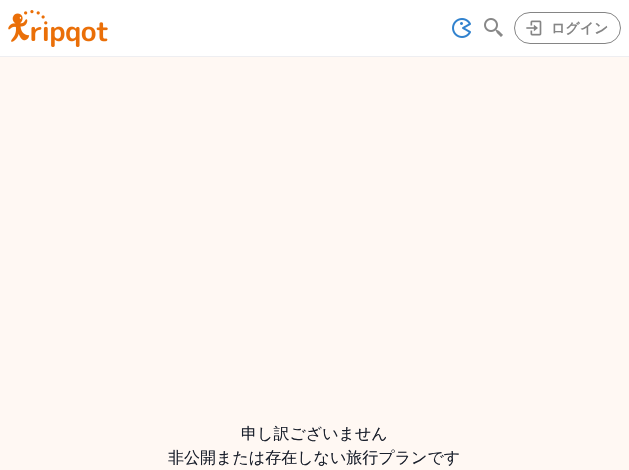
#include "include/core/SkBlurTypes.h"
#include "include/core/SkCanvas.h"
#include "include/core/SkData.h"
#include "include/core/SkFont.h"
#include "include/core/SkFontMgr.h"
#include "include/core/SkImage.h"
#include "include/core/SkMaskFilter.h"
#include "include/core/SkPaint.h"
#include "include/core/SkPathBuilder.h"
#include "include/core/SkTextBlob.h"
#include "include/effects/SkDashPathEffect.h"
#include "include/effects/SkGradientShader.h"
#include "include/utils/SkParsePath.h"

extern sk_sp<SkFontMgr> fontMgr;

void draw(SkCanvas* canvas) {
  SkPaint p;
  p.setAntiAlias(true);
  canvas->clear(SkColorSetRGB(255, 248, 243));
  p.setColor(SK_ColorWHITE);
  canvas->drawRect(SkRect::MakeLTRB(0, 0, 629, 56), p);
  canvas->drawImageRect(SkImages::DeferredFromEncodedData(SkData::MakeFromFileName("images/1.png")), SkRect::MakeLTRB(8, 10, 108, 47), SkSamplingOptions());
  canvas->drawImageRect(SkImages::DeferredFromEncodedData(SkData::MakeFromFileName("images/2.png")), SkRect::MakeLTRB(452, 18, 471, 38), SkSamplingOptions());
  canvas->drawImageRect(SkImages::DeferredFromEncodedData(SkData::MakeFromFileName("images/3.png")), SkRect::MakeLTRB(484, 18, 503, 37), SkSamplingOptions());
  p.setStyle(SkPaint::kStroke_Style);
  p.setStrokeWidth(1);
  p.setColor(SkColorSetRGB(133, 133, 133));
  canvas->drawRoundRect(SkRect::MakeLTRB(514.5f, 12.5f, 620.5f, 43.5f), 15.5f, 15.5f, p);
  canvas->drawImageRect(SkImages::DeferredFromEncodedData(SkData::MakeFromFileName("images/4.png")), SkRect::MakeLTRB(526, 20, 542, 36), SkSamplingOptions());
  p.setStyle(SkPaint::kFill_Style);
  p.setColor(SkColorSetRGB(238, 238, 241));
  canvas->drawRect(SkRect::MakeLTRB(0, 56, 629, 57), p);
  SkFont font1(fontMgr->matchFamilyStyle("WenQuanYi Zen Hei", SkFontStyle::Bold()), 14);
  font1.setSubpixel(true);
  p.setColor(SkColorSetRGB(133, 133, 133));
  canvas->drawString("ログイン", 551, 33, font1, p);
  SkFont font2(fontMgr->matchFamilyStyle("WenQuanYi Zen Hei", SkFontStyle(500, SkFontStyle::kNormal_Width, SkFontStyle::kUpright_Slant)), 16);
  font2.setSubpixel(true);
  p.setColor(SkColorSetRGB(26, 32, 44));
  canvas->drawString("申し訳ございません", 241, 439, font2, p);
  canvas->drawString("非公開または存在しない旅行プランです", 168, 463, font2, p);
}
